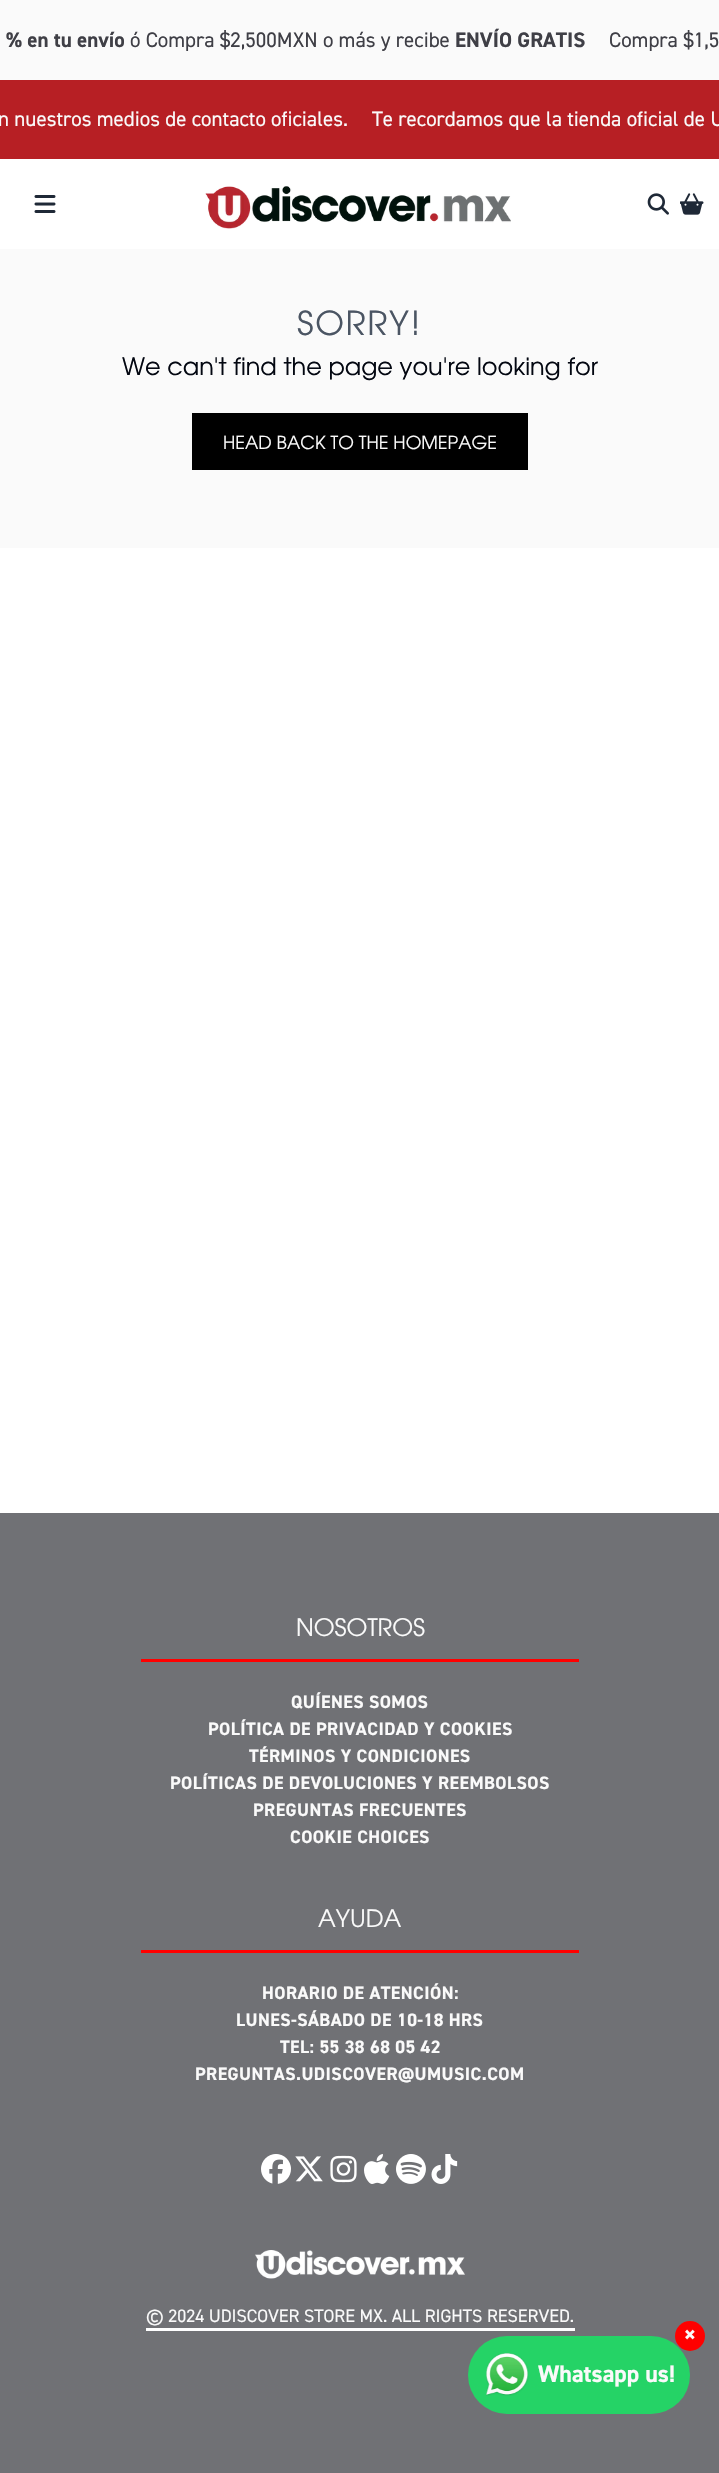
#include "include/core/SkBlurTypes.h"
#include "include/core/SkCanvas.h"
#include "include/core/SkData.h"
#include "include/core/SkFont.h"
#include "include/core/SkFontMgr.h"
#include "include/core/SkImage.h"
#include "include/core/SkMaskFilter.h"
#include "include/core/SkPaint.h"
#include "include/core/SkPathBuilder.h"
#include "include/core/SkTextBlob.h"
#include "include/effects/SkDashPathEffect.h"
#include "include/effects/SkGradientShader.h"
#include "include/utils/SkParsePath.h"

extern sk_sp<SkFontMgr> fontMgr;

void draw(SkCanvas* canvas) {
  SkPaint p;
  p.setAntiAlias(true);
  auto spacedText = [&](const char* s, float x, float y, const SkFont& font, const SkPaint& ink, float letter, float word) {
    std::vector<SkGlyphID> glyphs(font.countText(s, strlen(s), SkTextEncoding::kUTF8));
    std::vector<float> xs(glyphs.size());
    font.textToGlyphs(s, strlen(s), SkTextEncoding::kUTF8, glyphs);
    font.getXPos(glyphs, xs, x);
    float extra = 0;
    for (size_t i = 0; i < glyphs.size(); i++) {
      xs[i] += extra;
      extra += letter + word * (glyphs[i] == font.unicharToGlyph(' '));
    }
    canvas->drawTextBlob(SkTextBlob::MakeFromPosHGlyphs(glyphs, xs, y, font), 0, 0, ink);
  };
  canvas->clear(SK_ColorWHITE);
  p.setColor(SkColorSetRGB(250, 250, 250));
  canvas->drawRect(SkRect::MakeLTRB(0, 0, 719, 80), p);
  p.setColor(SkColorSetRGB(183, 31, 36));
  canvas->drawRect(SkRect::MakeLTRB(0, 80, 719, 159), p);
  canvas->drawImageRect(SkImages::DeferredFromEncodedData(SkData::MakeFromFileName("images/1.png")), SkRect::MakeLTRB(34, 195, 56, 213), SkSamplingOptions());
  canvas->drawImageRect(SkImages::DeferredFromEncodedData(SkData::MakeFromFileName("images/2.png")), SkRect::MakeLTRB(205, 186, 511, 229), SkSamplingOptions());
  canvas->drawImageRect(SkImages::DeferredFromEncodedData(SkData::MakeFromFileName("images/3.png")), SkRect::MakeLTRB(647, 193, 669, 215), SkSamplingOptions());
  canvas->drawImageRect(SkImages::DeferredFromEncodedData(SkData::MakeFromFileName("images/4.png")), SkRect::MakeLTRB(680, 193, 704, 215), SkSamplingOptions());
  p.setColor(SkColorSetRGB(250, 250, 250));
  canvas->drawRect(SkRect::MakeLTRB(0, 249, 719, 548), p);
  p.setColor(SK_ColorBLACK);
  canvas->drawRect(SkRect::MakeLTRB(193, 414, 527, 469), p);
  p.setStyle(SkPaint::kStroke_Style);
  p.setStrokeWidth(2);
  canvas->drawRect(SkRect::MakeLTRB(193, 414, 527, 469), p);
  p.setStyle(SkPaint::kFill_Style);
  p.setColor(SkColorSetRGB(112, 113, 117));
  canvas->drawRect(SkRect::MakeLTRB(0, 1513, 719, 2473), p);
  p.setColor(SkColorSetRGB(255, 0, 0));
  canvas->drawRect(SkRect::MakeLTRB(141, 1659, 579, 1662), p);
  canvas->drawRect(SkRect::MakeLTRB(141, 1950, 579, 1953), p);
  canvas->drawImageRect(SkImages::DeferredFromEncodedData(SkData::MakeFromFileName("images/5.png")), SkRect::MakeLTRB(261, 2154, 291, 2184), SkSamplingOptions());
  canvas->drawImageRect(SkImages::DeferredFromEncodedData(SkData::MakeFromFileName("images/6.png")), SkRect::MakeLTRB(295, 2156, 323, 2182), SkSamplingOptions());
  canvas->drawImageRect(SkImages::DeferredFromEncodedData(SkData::MakeFromFileName("images/7.png")), SkRect::MakeLTRB(330, 2155, 357, 2183), SkSamplingOptions());
  canvas->drawImageRect(SkImages::DeferredFromEncodedData(SkData::MakeFromFileName("images/8.png")), SkRect::MakeLTRB(364, 2154, 390, 2184), SkSamplingOptions());
  canvas->drawImageRect(SkImages::DeferredFromEncodedData(SkData::MakeFromFileName("images/9.png")), SkRect::MakeLTRB(396, 2154, 426, 2184), SkSamplingOptions());
  canvas->drawImageRect(SkImages::DeferredFromEncodedData(SkData::MakeFromFileName("images/10.png")), SkRect::MakeLTRB(431, 2154, 458, 2184), SkSamplingOptions());
  canvas->drawImageRect(SkImages::DeferredFromEncodedData(SkData::MakeFromFileName("images/11.png")), SkRect::MakeLTRB(255, 2250, 465, 2279), SkSamplingOptions());
  p.setColor(SK_ColorWHITE);
  canvas->drawRect(SkRect::MakeLTRB(146, 2328, 575, 2331), p);
  p.setColor(SkColorSetRGB(37, 211, 102));
  canvas->drawRoundRect(SkRect::MakeLTRB(468, 2336, 690, 2414), 39, 39, p);
  p.setColor(SkColorSetRGB(255, 0, 0));
  canvas->drawCircle(690, 2336, 15, p);
  canvas->drawImageRect(SkImages::DeferredFromEncodedData(SkData::MakeFromFileName("images/12.png")), SkRect::MakeLTRB(486, 2353, 529, 2396), SkSamplingOptions());
  SkFont font1(fontMgr->matchFamilyStyle("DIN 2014", SkFontStyle::Bold()), 21);
  font1.setSubpixel(true);
  p.setColor(SkColorSetRGB(63, 63, 70));
  canvas->drawString("% en tu envío", 6, 47, font1, p);
  SkFont font2(fontMgr->matchFamilyStyle("DIN 2014", SkFontStyle::Normal()), 21);
  font2.setSubpixel(true);
  canvas->drawString("ó Compra $2,500MXN o más y recibe", 130, 47, font2, p);
  canvas->drawString("ENVÍO GRATIS", 455, 47, font1, p);
  canvas->drawString("Compra $1,5", 609, 47, font2, p);
  p.setColor(SkColorSetRGB(250, 250, 250));
  canvas->drawString("n nuestros medios de contacto oficiales.", -2, 126, font2, p);
  canvas->drawString("Te recordamos que la tienda oficial de U", 372, 126, font2, p);
  SkFont font3(fontMgr->matchFamilyStyle("TeX Gyre Adventor", SkFontStyle::Normal()), 33);
  font3.setSubpixel(true);
  p.setColor(SkColorSetRGB(75, 85, 99));
  spacedText("SORRY!", 297, 335, font3, p, 1.75f, 0);
  SkFont font4(fontMgr->matchFamilyStyle("TeX Gyre Adventor", SkFontStyle::Normal()), 24);
  font4.setSubpixel(true);
  p.setColor(SkColorSetRGB(3, 7, 17));
  canvas->drawString("We can't find the page you're looking for", 122, 375, font4, p);
  SkFont font5(fontMgr->matchFamilyStyle("TeX Gyre Adventor", SkFontStyle::Normal()), 18);
  font5.setSubpixel(true);
  p.setColor(SkColorSetRGB(250, 250, 250));
  canvas->drawString("HEAD BACK TO THE HOMEPAGE", 223, 449, font5, p);
  canvas->drawString("NOSOTROS", 296, 1636, font4, p);
  SkFont font6(fontMgr->matchFamilyStyle("DIN 2014", SkFontStyle::Bold()), 18);
  font6.setSubpixel(true);
  spacedText("QUÍENES SOMOS", 291, 1708, font6, p, 0.45f, 0);
  spacedText("POLÍTICA DE PRIVACIDAD Y COOKIES", 208, 1735, font6, p, 0.45f, 0);
  spacedText("TÉRMINOS Y CONDICIONES", 249, 1762, font6, p, 0.45f, 0);
  spacedText("POLÍTICAS DE DEVOLUCIONES Y REEMBOLSOS", 170, 1789, font6, p, 0.45f, 0);
  spacedText("PREGUNTAS FRECUENTES", 253, 1816, font6, p, 0.45f, 0);
  spacedText("COOKIE CHOICES", 290, 1843, font6, p, 0.45f, 0);
  canvas->drawString("AYUDA", 318, 1927, font4, p);
  spacedText("HORARIO DE ATENCIÓN:", 262, 1999, font6, p, 0.45f, 0);
  spacedText("LUNES-SÁBADO DE 10-18 HRS", 236, 2026, font6, p, 0.45f, 0);
  spacedText("TEL: 55 38 68 05 42", 280, 2053, font6, p, 0.45f, 0);
  spacedText("PREGUNTAS.UDISCOVER@UMUSIC.COM", 195, 2080, font6, p, 0.45f, 0);
  SkFont font7(fontMgr->matchFamilyStyle("DIN 2014", SkFontStyle::Normal()), 18);
  font7.setSubpixel(true);
  canvas->drawString("© 2024 UDISCOVER STORE MX. ALL RIGHTS RESERVED.", 146, 2322, font7, p);
  SkFont font8(fontMgr->matchFamilyStyle("DIN 2014", SkFontStyle::Bold()), 24);
  font8.setSubpixel(true);
  canvas->drawString("×", 683, 2343, font8, p);
  canvas->drawString("Whatsapp us!", 538, 2382, font8, p);
}
